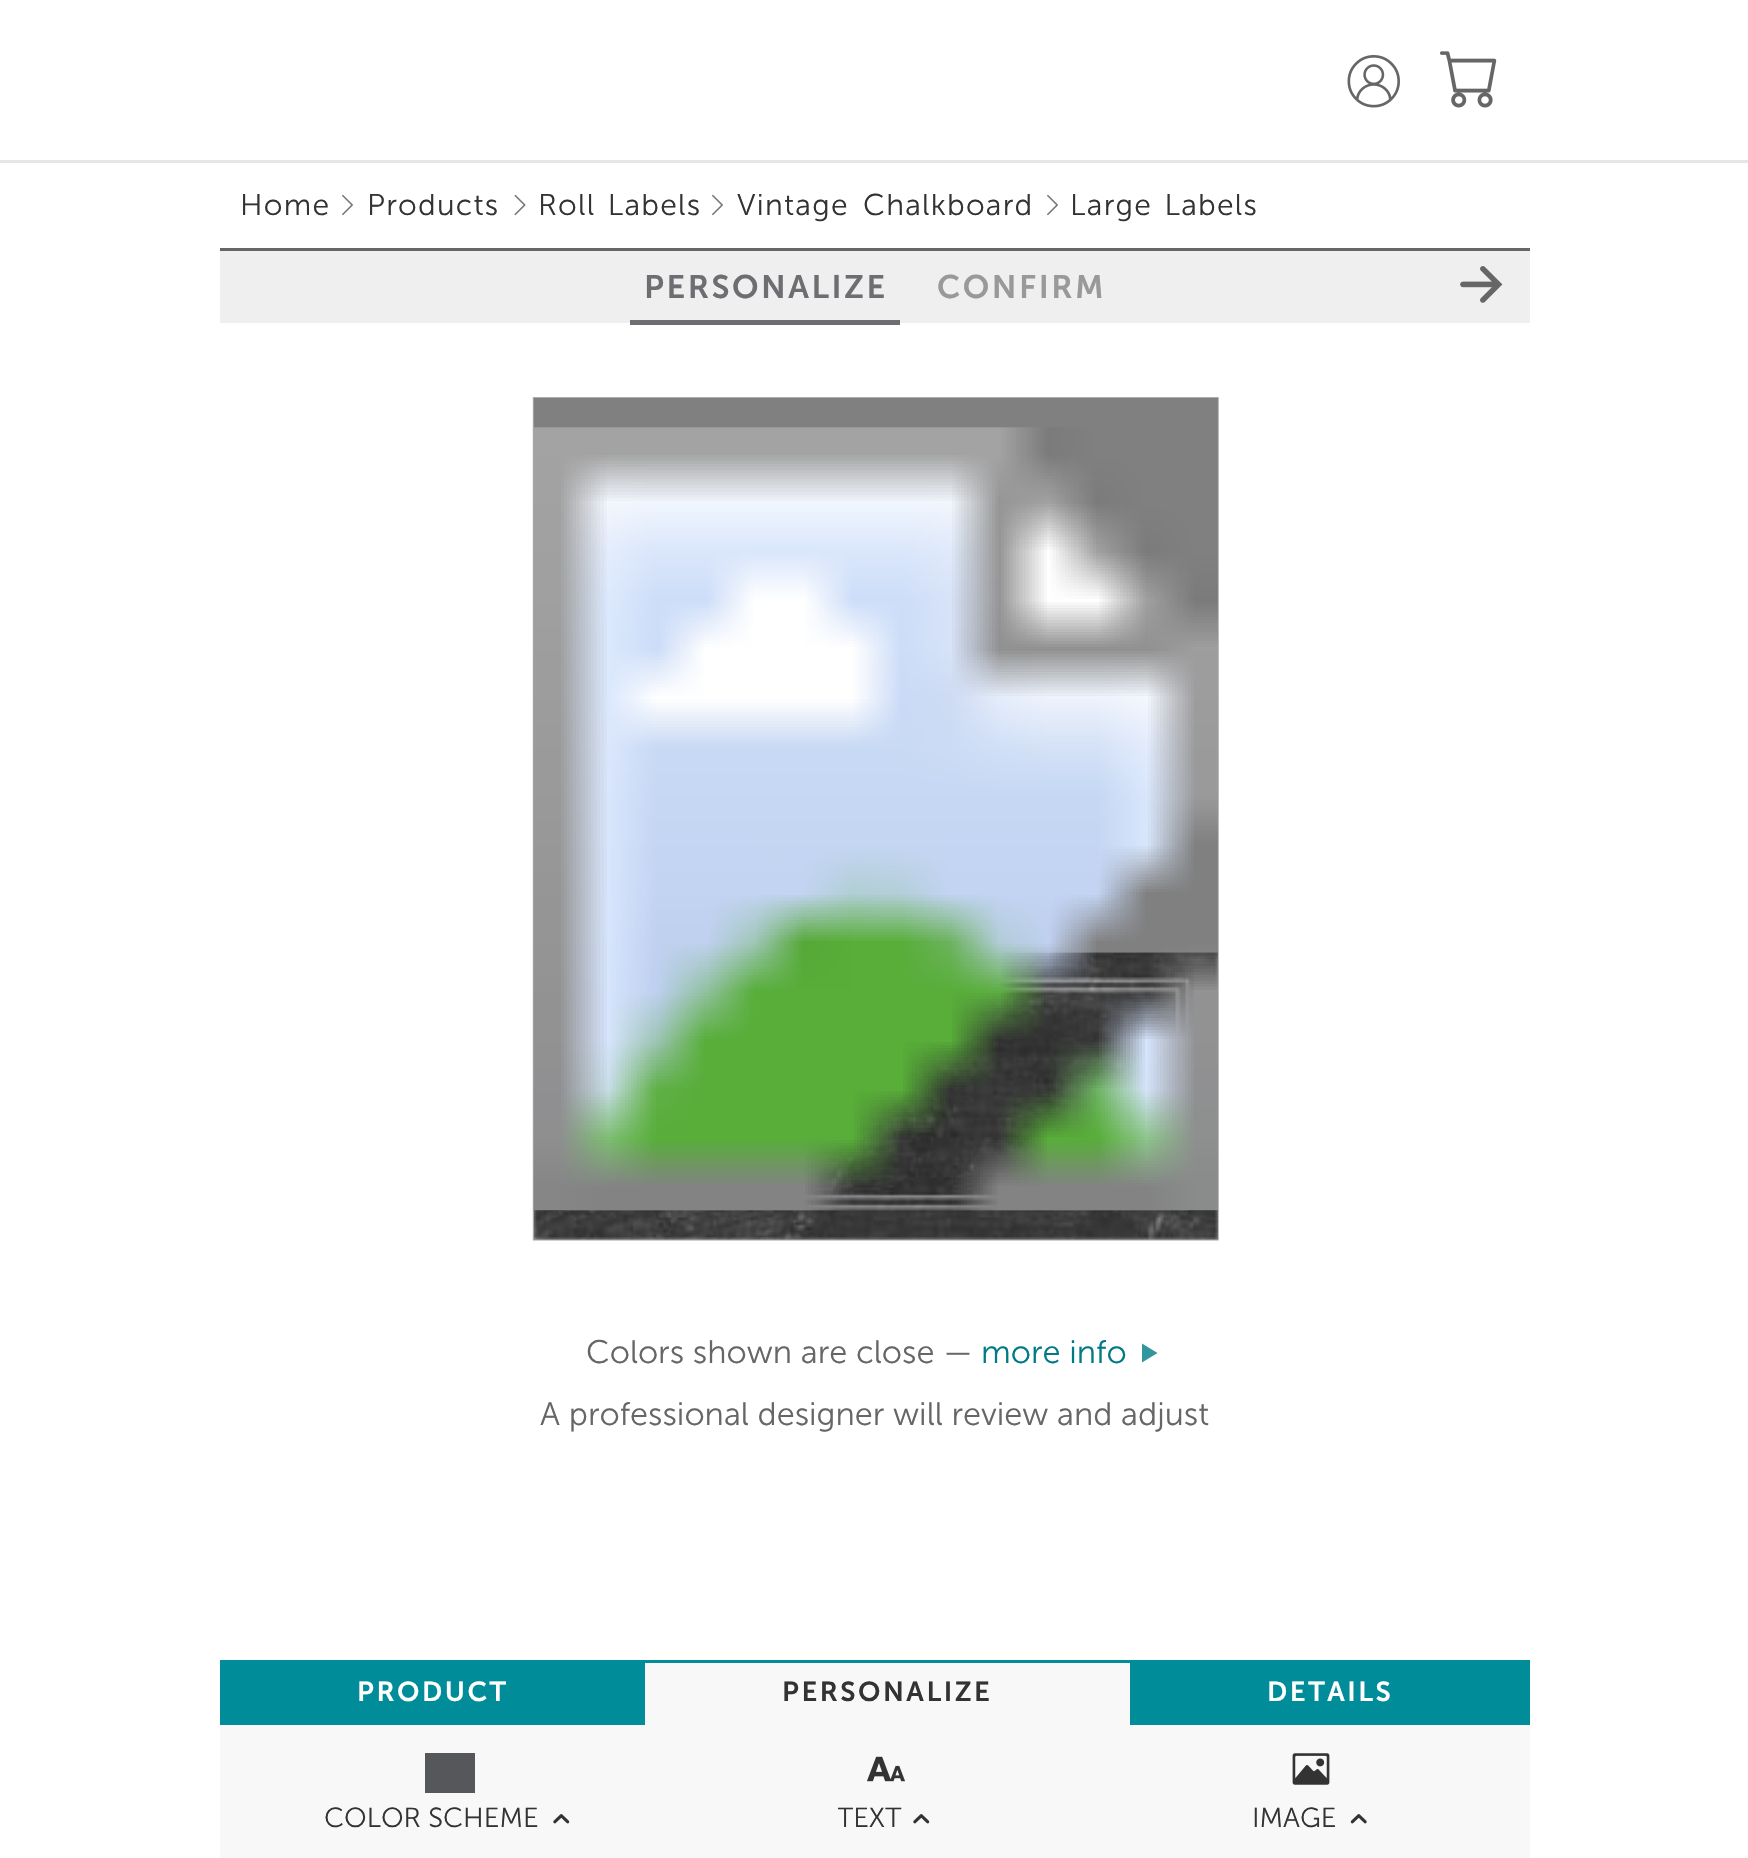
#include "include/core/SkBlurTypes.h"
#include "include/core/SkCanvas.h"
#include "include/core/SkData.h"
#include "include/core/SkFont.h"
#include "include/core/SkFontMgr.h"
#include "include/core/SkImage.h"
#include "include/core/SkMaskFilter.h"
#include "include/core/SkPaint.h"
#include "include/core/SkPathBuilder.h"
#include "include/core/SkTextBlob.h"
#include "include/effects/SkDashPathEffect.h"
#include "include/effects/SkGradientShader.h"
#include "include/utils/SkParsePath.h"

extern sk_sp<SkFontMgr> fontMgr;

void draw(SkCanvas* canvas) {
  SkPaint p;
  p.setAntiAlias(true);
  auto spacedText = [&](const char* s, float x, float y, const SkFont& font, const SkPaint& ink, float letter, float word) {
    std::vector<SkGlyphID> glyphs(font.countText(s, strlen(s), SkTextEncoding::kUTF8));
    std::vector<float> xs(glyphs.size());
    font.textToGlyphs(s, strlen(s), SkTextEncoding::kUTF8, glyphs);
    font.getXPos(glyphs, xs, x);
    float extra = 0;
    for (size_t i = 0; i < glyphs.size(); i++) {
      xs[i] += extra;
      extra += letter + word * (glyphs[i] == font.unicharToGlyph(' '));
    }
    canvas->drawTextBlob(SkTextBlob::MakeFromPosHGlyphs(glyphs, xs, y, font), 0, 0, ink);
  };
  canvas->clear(SK_ColorWHITE);
  p.setColor(SkColorSetRGB(230, 230, 230));
  canvas->drawRect(SkRect::MakeLTRB(0, 160, 1748, 163), p);
  canvas->drawImageRect(SkImages::DeferredFromEncodedData(SkData::MakeFromFileName("images/1.png")), SkRect::MakeLTRB(1347, 55, 1400, 108), SkSamplingOptions());
  canvas->drawImageRect(SkImages::DeferredFromEncodedData(SkData::MakeFromFileName("images/2.png")), SkRect::MakeLTRB(1440, 51, 1497, 108), SkSamplingOptions());
  p.setColor(SkColorSetRGB(239, 239, 239));
  canvas->drawRect(SkRect::MakeLTRB(220, 251, 1530, 323), p);
  p.setColor(SkColorSetRGB(102, 102, 102));
  canvas->drawRect(SkRect::MakeLTRB(220, 248, 1530, 251), p);
  canvas->drawImageRect(SkImages::DeferredFromEncodedData(SkData::MakeFromFileName("images/3.png")), SkRect::MakeLTRB(342, 194, 353, 216), SkSamplingOptions());
  canvas->drawImageRect(SkImages::DeferredFromEncodedData(SkData::MakeFromFileName("images/4.png")), SkRect::MakeLTRB(514, 194, 526, 216), SkSamplingOptions());
  canvas->drawImageRect(SkImages::DeferredFromEncodedData(SkData::MakeFromFileName("images/3.png")), SkRect::MakeLTRB(712, 194, 723, 216), SkSamplingOptions());
  canvas->drawImageRect(SkImages::DeferredFromEncodedData(SkData::MakeFromFileName("images/3.png")), SkRect::MakeLTRB(1047, 194, 1058, 216), SkSamplingOptions());
  p.setColor(SkColorSetRGB(109, 110, 113));
  canvas->drawRect(SkRect::MakeLTRB(630, 320, 900, 325), p);
  canvas->drawImageRect(SkImages::DeferredFromEncodedData(SkData::MakeFromFileName("images/5.png")), SkRect::MakeLTRB(1460, 266, 1503, 303), SkSamplingOptions());
  canvas->drawImageRect(SkImages::DeferredFromEncodedData(SkData::MakeFromFileName("images/6.png")), SkRect::MakeLTRB(532, 397, 1219, 1241), SkSamplingOptions());
  p.setColor(SkColorSetRGB(51, 149, 157));
  canvas->drawPath(SkPathBuilder().moveTo(1142, 1343.5f).lineTo(1157.5f, 1353).lineTo(1142, 1362.5f).close().detach(), p);
  p.setColor(SkColorSetRGB(248, 248, 248));
  canvas->drawRect(SkRect::MakeLTRB(220, 1725, 1530, 1858), p);
  p.setColor(SkColorSetRGB(0, 140, 152));
  canvas->drawRect(SkRect::MakeLTRB(220, 1660, 1530, 1725), p);
  p.setColor(SkColorSetRGB(248, 248, 248));
  canvas->drawRect(SkRect::MakeLTRB(645, 1663, 1130, 1725), p);
  p.setColor(SkColorSetRGB(85, 87, 91));
  canvas->drawRect(SkRect::MakeLTRB(425, 1753, 475, 1793), p);
  canvas->drawImageRect(SkImages::DeferredFromEncodedData(SkData::MakeFromFileName("images/7.png")), SkRect::MakeLTRB(553, 1814, 570, 1824), SkSamplingOptions());
  canvas->drawImageRect(SkImages::DeferredFromEncodedData(SkData::MakeFromFileName("images/8.png")), SkRect::MakeLTRB(867, 1756, 905, 1782), SkSamplingOptions());
  canvas->drawImageRect(SkImages::DeferredFromEncodedData(SkData::MakeFromFileName("images/7.png")), SkRect::MakeLTRB(913, 1814, 930, 1824), SkSamplingOptions());
  canvas->drawImageRect(SkImages::DeferredFromEncodedData(SkData::MakeFromFileName("images/9.png")), SkRect::MakeLTRB(1292, 1753, 1330, 1785), SkSamplingOptions());
  canvas->drawImageRect(SkImages::DeferredFromEncodedData(SkData::MakeFromFileName("images/10.png")), SkRect::MakeLTRB(1350, 1814, 1367, 1824), SkSamplingOptions());
  SkFont font1(fontMgr->matchFamilyStyle("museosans", SkFontStyle::Normal()), 30);
  font1.setSubpixel(true);
  p.setColor(SkColorSetRGB(51, 51, 51));
  spacedText("Home", 240, 215, font1, p, 1.25f, 0);
  spacedText("Products", 367, 215, font1, p, 1.25f, 0);
  spacedText("Roll Labels", 538, 215, font1, p, 1.25f, 3);
  spacedText("Vintage Chalkboard", 737, 215, font1, p, 1.25f, 5);
  spacedText("Large Labels", 1070, 215, font1, p, 1.25f, 3);
  SkFont font2(fontMgr->matchFamilyStyle("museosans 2", SkFontStyle::Normal()), 32.5f);
  font2.setSubpixel(true);
  p.setColor(SkColorSetRGB(109, 110, 113));
  spacedText("PERSONALIZE", 644, 298, font2, p, 2.5f, 0);
  p.setColor(SkColorSetRGB(153, 153, 153));
  spacedText("CONFIRM", 937, 298, font2, p, 2.5f, 0);
  SkFont font3(fontMgr->matchFamilyStyle("museosans", SkFontStyle::Normal()), 32.5f);
  font3.setSubpixel(true);
  p.setColor(SkColorSetRGB(102, 102, 102));
  canvas->drawString("Colors shown are close —", 586, 1363, font3, p);
  p.setColor(SkColorSetRGB(0, 123, 133));
  canvas->drawString("more info", 981, 1363, font3, p);
  p.setColor(SkColorSetRGB(102, 102, 102));
  canvas->drawString("A professional designer will review and adjust", 540, 1425, font3, p);
  SkFont font4(fontMgr->matchFamilyStyle("museosans 2", SkFontStyle::Normal()), 27.5f);
  font4.setSubpixel(true);
  p.setColor(SK_ColorWHITE);
  spacedText("PRODUCT", 357, 1701, font4, p, 2.5f, 0);
  p.setColor(SkColorSetRGB(51, 51, 51));
  spacedText("PERSONALIZE", 782, 1701, font4, p, 2.5f, 0);
  p.setColor(SK_ColorWHITE);
  spacedText("DETAILS", 1267, 1701, font4, p, 2.5f, 0);
  SkFont font5(fontMgr->matchFamilyStyle("museosans", SkFontStyle::Normal()), 27.5f);
  font5.setSubpixel(true);
  p.setColor(SkColorSetRGB(51, 51, 51));
  canvas->drawString("COLOR SCHEME", 324, 1827, font5, p);
  canvas->save();
  canvas->clipRect(SkRect::MakeLTRB(838, 1803, 935, 1835));
  canvas->drawString("TEXT", 837, 1827, font5, p);
  canvas->restore();
  canvas->drawString("IMAGE", 1252, 1827, font5, p);
}
